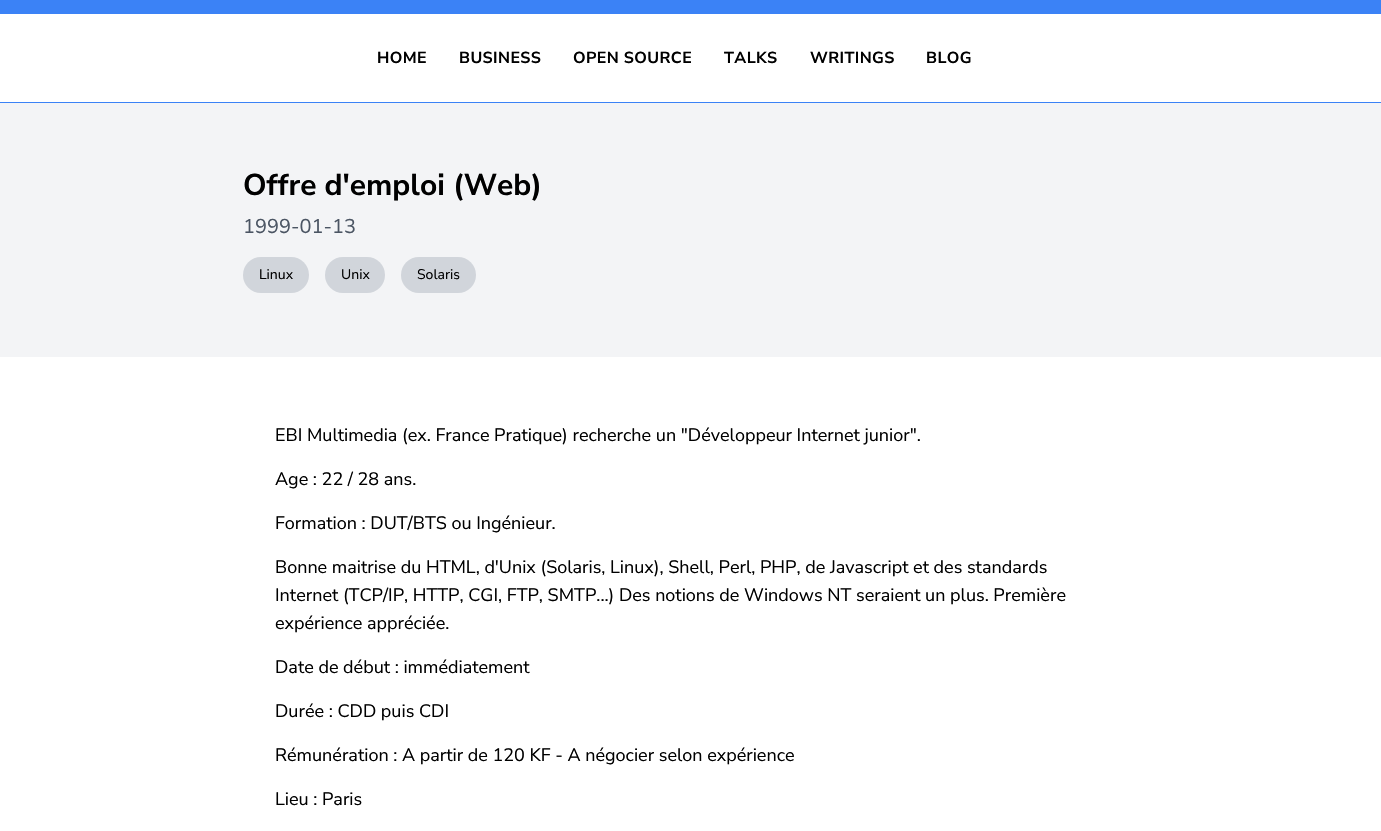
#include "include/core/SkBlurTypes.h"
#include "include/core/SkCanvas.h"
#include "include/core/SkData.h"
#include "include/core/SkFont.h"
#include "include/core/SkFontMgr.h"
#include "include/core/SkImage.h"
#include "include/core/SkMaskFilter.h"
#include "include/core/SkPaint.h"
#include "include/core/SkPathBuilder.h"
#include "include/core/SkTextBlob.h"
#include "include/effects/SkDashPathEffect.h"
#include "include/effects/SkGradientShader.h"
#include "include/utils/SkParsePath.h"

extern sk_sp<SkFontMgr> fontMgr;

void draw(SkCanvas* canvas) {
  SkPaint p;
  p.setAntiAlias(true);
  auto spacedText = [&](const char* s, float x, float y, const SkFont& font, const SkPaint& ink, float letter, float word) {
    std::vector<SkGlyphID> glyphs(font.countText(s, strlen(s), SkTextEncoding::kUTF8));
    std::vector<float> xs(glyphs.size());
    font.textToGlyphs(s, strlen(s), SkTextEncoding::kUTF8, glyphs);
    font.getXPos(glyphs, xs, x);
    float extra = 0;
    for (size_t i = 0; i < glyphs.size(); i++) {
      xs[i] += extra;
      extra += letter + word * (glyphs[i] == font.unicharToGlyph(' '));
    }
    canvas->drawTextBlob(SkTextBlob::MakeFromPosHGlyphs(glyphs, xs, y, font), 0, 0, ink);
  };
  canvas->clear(SK_ColorWHITE);
  p.setColor(SkColorSetRGB(59, 130, 246));
  canvas->drawRect(SkRect::MakeLTRB(0, 0, 1381, 14), p);
  canvas->drawRect(SkRect::MakeLTRB(0, 102, 1381, 103), p);
  p.setColor(SkColorSetRGB(243, 244, 246));
  canvas->drawRect(SkRect::MakeLTRB(0, 103, 1381, 357), p);
  p.setColor(SkColorSetRGB(209, 213, 219));
  canvas->drawRoundRect(SkRect::MakeLTRB(243, 257, 309, 293), 18, 18, p);
  canvas->drawRoundRect(SkRect::MakeLTRB(325, 257, 385, 293), 18, 18, p);
  canvas->drawRoundRect(SkRect::MakeLTRB(401, 257, 476, 293), 18, 18, p);
  SkFont font1(fontMgr->matchFamilyStyle("Nunito Sans", SkFontStyle::Bold()), 16);
  font1.setSubpixel(true);
  p.setColor(SK_ColorBLACK);
  spacedText("HOME", 377, 63, font1, p, 0.4f, 0);
  spacedText("BUSINESS", 459, 63, font1, p, 0.4f, 0);
  spacedText("OPEN SOURCE", 573, 63, font1, p, 0.4f, 0);
  spacedText("TALKS", 724, 63, font1, p, 0.4f, 0);
  spacedText("WRITINGS", 810, 63, font1, p, 0.4f, 0);
  spacedText("BLOG", 926, 63, font1, p, 0.4f, 0);
  SkFont font2(fontMgr->matchFamilyStyle("Nunito Sans", SkFontStyle::Bold()), 30);
  font2.setSubpixel(true);
  canvas->drawString("Offre d'emploi (Web)", 243, 195, font2, p);
  SkFont font3(fontMgr->matchFamilyStyle("Nunito Sans", SkFontStyle::Normal()), 20);
  font3.setSubpixel(true);
  p.setColor(SkColorSetRGB(75, 85, 99));
  canvas->drawString("1999-01-13", 243, 233, font3, p);
  SkFont font4(fontMgr->matchFamilyStyle("Nunito Sans", SkFontStyle::Normal()), 14);
  font4.setSubpixel(true);
  p.setColor(SK_ColorBLACK);
  canvas->drawString("Linux", 259, 279, font4, p);
  canvas->drawString("Unix", 341, 279, font4, p);
  canvas->drawString("Solaris", 417, 279, font4, p);
  SkFont font5(fontMgr->matchFamilyStyle("Nunito Sans", SkFontStyle::Normal()), 18);
  font5.setSubpixel(true);
  canvas->drawString("EBI Multimedia (ex. France Pratique) recherche un \"Développeur Internet junior\".", 275, 441, font5, p);
  canvas->drawString("Age : 22 / 28 ans.", 275, 485, font5, p);
  canvas->drawString("Formation : DUT/BTS ou Ingénieur.", 275, 529, font5, p);
  canvas->drawString("Bonne maitrise du HTML, d'Unix (Solaris, Linux), Shell, Perl, PHP, de Javascript et des standards", 275, 573, font5, p);
  canvas->drawString("Internet (TCP/IP, HTTP, CGI, FTP, SMTP...) Des notions de Windows NT seraient un plus. Première", 275, 601, font5, p);
  canvas->drawString("expérience appréciée.", 275, 629, font5, p);
  canvas->drawString("Date de début : immédiatement", 275, 673, font5, p);
  canvas->drawString("Durée : CDD puis CDI", 275, 717, font5, p);
  canvas->drawString("Rémunération : A partir de 120 KF - A négocier selon expérience", 275, 761, font5, p);
  canvas->drawString("Lieu : Paris", 275, 805, font5, p);
}
